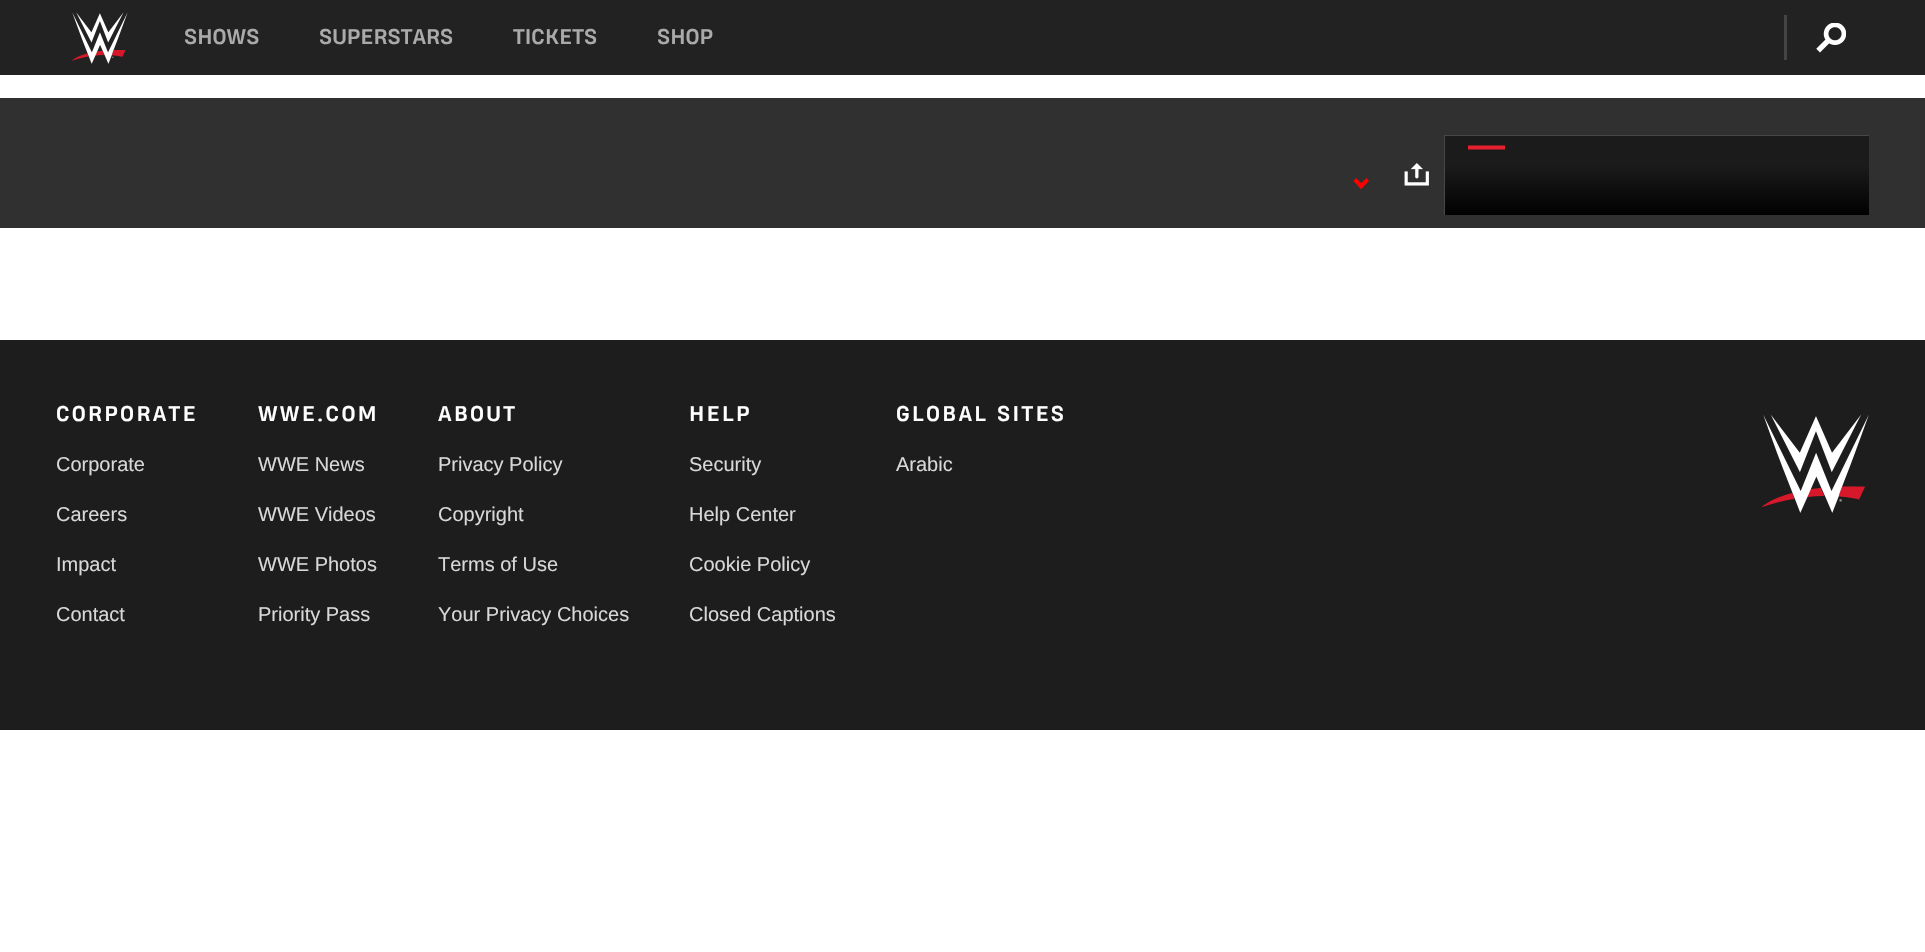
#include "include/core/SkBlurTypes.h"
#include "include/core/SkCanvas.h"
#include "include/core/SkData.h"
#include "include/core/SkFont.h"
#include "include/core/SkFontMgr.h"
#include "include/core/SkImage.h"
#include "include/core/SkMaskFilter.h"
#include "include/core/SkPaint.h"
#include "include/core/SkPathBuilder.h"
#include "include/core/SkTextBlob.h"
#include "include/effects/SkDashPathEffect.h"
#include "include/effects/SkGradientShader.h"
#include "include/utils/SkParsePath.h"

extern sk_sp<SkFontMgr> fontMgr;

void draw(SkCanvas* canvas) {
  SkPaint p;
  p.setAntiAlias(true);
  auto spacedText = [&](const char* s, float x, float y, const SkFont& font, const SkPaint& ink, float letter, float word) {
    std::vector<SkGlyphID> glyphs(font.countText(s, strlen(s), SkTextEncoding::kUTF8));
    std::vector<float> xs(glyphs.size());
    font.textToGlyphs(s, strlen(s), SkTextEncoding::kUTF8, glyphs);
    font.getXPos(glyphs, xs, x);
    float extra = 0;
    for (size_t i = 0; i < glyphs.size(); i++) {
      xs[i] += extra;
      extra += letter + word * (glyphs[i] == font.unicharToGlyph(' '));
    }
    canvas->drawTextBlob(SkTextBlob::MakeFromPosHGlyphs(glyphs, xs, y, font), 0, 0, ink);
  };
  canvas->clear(SK_ColorWHITE);
  p.setColor(SkColorSetRGB(34, 34, 34));
  canvas->drawRect(SkRect::MakeLTRB(0, 0, 1925, 75), p);
  canvas->drawImageRect(SkImages::DeferredFromEncodedData(SkData::MakeFromFileName("images/1.png")), SkRect::MakeLTRB(71, 12, 128, 64), SkSamplingOptions());
  p.setColor(SkColorSetRGB(68, 68, 68));
  canvas->drawRect(SkRect::MakeLTRB(1784, 15, 1787, 60), p);
  canvas->drawImageRect(SkImages::DeferredFromEncodedData(SkData::MakeFromFileName("images/2.png")), SkRect::MakeLTRB(1816, 23, 1846, 53), SkSamplingOptions());
  p.setColor(SkColorSetRGB(48, 48, 48));
  canvas->drawRect(SkRect::MakeLTRB(0, 98, 1925, 228), p);
  p.setColor(SkColorSetRGB(255, 0, 0));
  canvas->drawPath(SkPathBuilder().moveTo(1366.5f, 178).lineTo(1369, 181).lineTo(1361, 189).lineTo(1358.5f, 186).close().detach(), p);
  canvas->drawPath(SkPathBuilder().moveTo(1356, 178).lineTo(1364, 186).lineTo(1361, 189).lineTo(1353.5f, 181).close().detach(), p);
  canvas->drawImageRect(SkImages::DeferredFromEncodedData(SkData::MakeFromFileName("images/3.png")), SkRect::MakeLTRB(1404, 163, 1429, 186), SkSamplingOptions());
  p.setColor(SkColorSetRGB(27, 27, 27));
  canvas->drawRect(SkRect::MakeLTRB(1445, 136, 1869, 165), p);
  p.setColor(SkColorSetRGB(71, 71, 71));
  canvas->drawRect(SkRect::MakeLTRB(1444, 135, 1445, 215), p);
  canvas->drawRect(SkRect::MakeLTRB(1445, 135, 1869, 136), p);
  canvas->save();
  canvas->clipRect(SkRect::MakeLTRB(1468, 144, 1505, 150));
  p.setStyle(SkPaint::kStroke_Style);
  p.setStrokeWidth(3.8f);
  p.setColor(SkColorSetRGB(231, 32, 47));
  canvas->drawPath(SkPathBuilder().moveTo(1409.5f, 147.5f).lineTo(1522, 147.5f).detach(), p);
  canvas->restore();
  p.setStyle(SkPaint::kFill_Style);
  {
    const SkColor colors[] = {SkColorSetRGB(27, 27, 27), SkColorSetRGB(1, 1, 1)};
    const float stops[] = {0, 1};
    const SkPoint ends[] = {{1657, 165}, {1657, 215}};
    p.setShader(SkGradientShader::MakeLinear(ends, colors, stops, 2, SkTileMode::kClamp));
    p.setAlpha(255);
  }
  canvas->drawRect(SkRect::MakeLTRB(1445, 165, 1869, 215), p);
  p.setShader(nullptr);
  p.setColor(SkColorSetRGB(29, 29, 29));
  canvas->drawRect(SkRect::MakeLTRB(0, 340, 1925, 730), p);
  canvas->drawImageRect(SkImages::DeferredFromEncodedData(SkData::MakeFromFileName("images/4.png")), SkRect::MakeLTRB(1761, 414, 1869, 513), SkSamplingOptions());
  SkFont font1(fontMgr->matchFamilyStyle("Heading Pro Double", SkFontStyle::Bold()), 20);
  font1.setSubpixel(true);
  p.setColor(SkColorSetRGB(170, 170, 170));
  canvas->drawString("SHOWS", 184, 44, font1, p);
  canvas->drawString("SUPERSTARS", 319, 44, font1, p);
  canvas->drawString("TICKETS", 513, 44, font1, p);
  canvas->drawString("SHOP", 657, 44, font1, p);
  p.setColor(SK_ColorWHITE);
  spacedText("CORPORATE", 56, 421, font1, p, 2.25f, 0);
  SkFont font2(fontMgr->matchFamilyStyle("Liberation Sans", SkFontStyle::Normal()), 20);
  font2.setSubpixel(true);
  p.setColor(SkColorSetRGB(216, 216, 216));
  canvas->drawString("Corporate", 56, 471, font2, p);
  canvas->drawString("Careers", 56, 521, font2, p);
  canvas->drawString("Impact", 56, 571, font2, p);
  canvas->drawString("Contact", 56, 621, font2, p);
  p.setColor(SK_ColorWHITE);
  spacedText("WWE.COM", 258, 421, font1, p, 2.25f, 0);
  p.setColor(SkColorSetRGB(216, 216, 216));
  canvas->drawString("WWE News", 258, 471, font2, p);
  canvas->drawString("WWE Videos", 258, 521, font2, p);
  canvas->drawString("WWE Photos", 258, 571, font2, p);
  canvas->drawString("Priority Pass", 258, 621, font2, p);
  p.setColor(SK_ColorWHITE);
  spacedText("ABOUT", 438, 421, font1, p, 2.25f, 0);
  p.setColor(SkColorSetRGB(216, 216, 216));
  canvas->drawString("Privacy Policy", 438, 471, font2, p);
  canvas->drawString("Copyright", 438, 521, font2, p);
  canvas->drawString("Terms of Use", 438, 571, font2, p);
  canvas->drawString("Your Privacy Choices", 438, 621, font2, p);
  p.setColor(SK_ColorWHITE);
  spacedText("HELP", 689, 421, font1, p, 2.25f, 0);
  p.setColor(SkColorSetRGB(216, 216, 216));
  canvas->drawString("Security", 689, 471, font2, p);
  canvas->drawString("Help Center", 689, 521, font2, p);
  canvas->drawString("Cookie Policy", 689, 571, font2, p);
  canvas->drawString("Closed Captions", 689, 621, font2, p);
  p.setColor(SK_ColorWHITE);
  spacedText("GLOBAL SITES", 896, 421, font1, p, 2.25f, 0);
  p.setColor(SkColorSetRGB(216, 216, 216));
  canvas->drawString("Arabic", 896, 471, font2, p);
}
